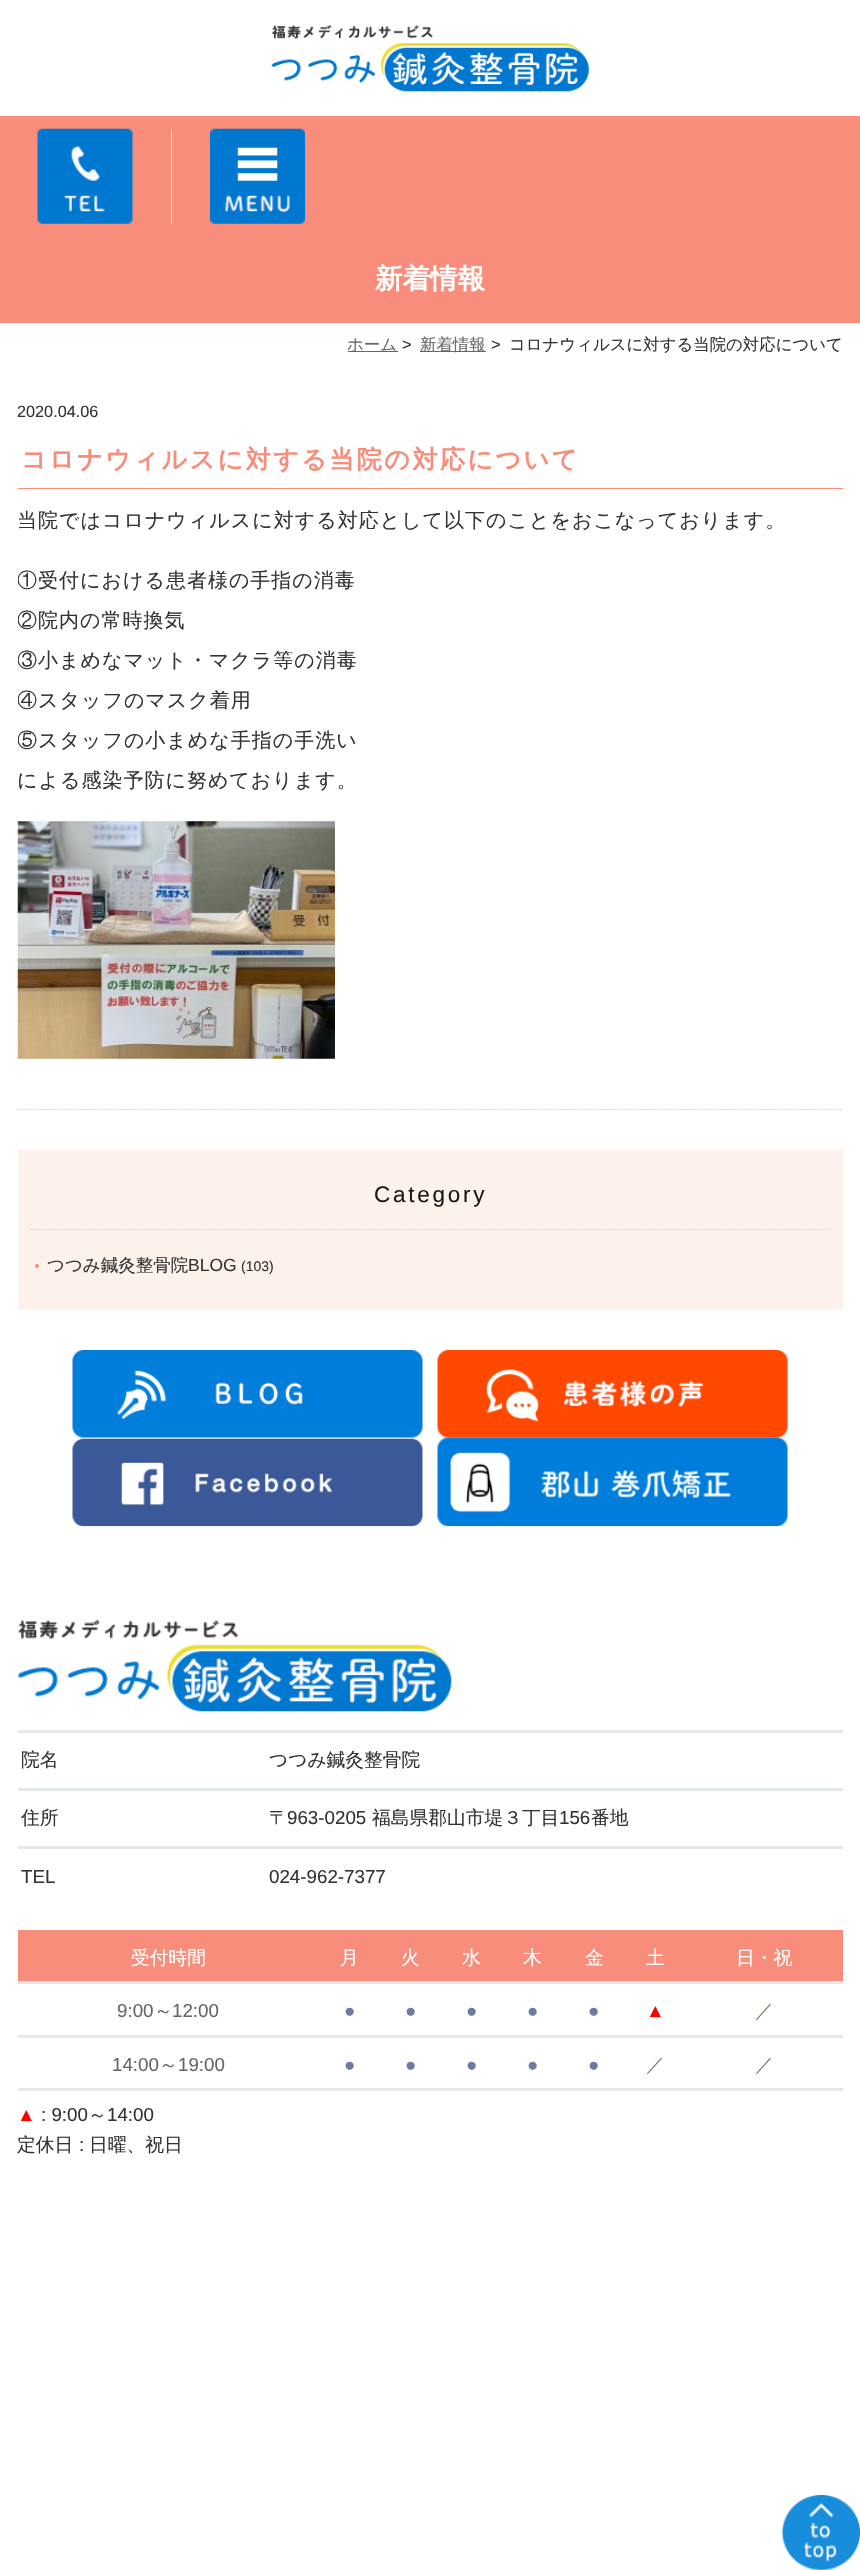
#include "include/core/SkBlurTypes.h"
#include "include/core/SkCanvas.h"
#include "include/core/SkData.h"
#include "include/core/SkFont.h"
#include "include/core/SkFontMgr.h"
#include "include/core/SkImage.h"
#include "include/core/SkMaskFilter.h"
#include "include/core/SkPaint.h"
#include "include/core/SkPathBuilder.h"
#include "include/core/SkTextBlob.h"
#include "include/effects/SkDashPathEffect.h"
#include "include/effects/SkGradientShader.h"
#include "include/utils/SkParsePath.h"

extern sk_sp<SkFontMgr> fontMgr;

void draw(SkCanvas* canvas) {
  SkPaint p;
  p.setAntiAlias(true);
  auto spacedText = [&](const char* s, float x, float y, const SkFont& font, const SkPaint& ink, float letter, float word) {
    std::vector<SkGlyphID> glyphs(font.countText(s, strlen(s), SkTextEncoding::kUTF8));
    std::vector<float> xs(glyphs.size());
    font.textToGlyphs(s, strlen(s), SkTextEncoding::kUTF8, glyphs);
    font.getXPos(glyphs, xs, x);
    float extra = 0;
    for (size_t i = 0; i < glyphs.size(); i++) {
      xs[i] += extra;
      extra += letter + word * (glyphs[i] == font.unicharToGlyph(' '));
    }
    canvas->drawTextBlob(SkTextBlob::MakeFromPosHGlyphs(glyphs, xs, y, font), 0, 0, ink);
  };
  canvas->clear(SK_ColorWHITE);
  canvas->drawImageRect(SkImages::DeferredFromEncodedData(SkData::MakeFromFileName("images/1.png")), SkRect::MakeLTRB(271, 25, 589, 92), SkSamplingOptions());
  p.setColor(SkColorSetRGB(247, 141, 122));
  canvas->drawRect(SkRect::MakeLTRB(0, 116, 860, 323), p);
  p.setColor(SkColorSetRGB(231, 231, 231));
  canvas->drawRect(SkRect::MakeLTRB(171, 129, 172, 224), p);
  canvas->drawImageRect(SkImages::DeferredFromEncodedData(SkData::MakeFromFileName("images/2.png")), SkRect::MakeLTRB(37, 128, 133, 224), SkSamplingOptions());
  canvas->drawImageRect(SkImages::DeferredFromEncodedData(SkData::MakeFromFileName("images/3.png")), SkRect::MakeLTRB(210, 128, 305, 224), SkSamplingOptions());
  p.setColor(SkColorSetRGB(102, 102, 102));
  canvas->drawRect(SkRect::MakeLTRB(348, 351, 398, 352), p);
  canvas->drawRect(SkRect::MakeLTRB(420, 351, 486, 352), p);
  p.setStyle(SkPaint::kStroke_Style);
  p.setStrokeWidth(1.2f);
  p.setColor(SkColorSetRGB(204, 204, 204));
  p.setPathEffect(SkDashPathEffect::Make({{1.25f, 1.25f}}, 0));
  canvas->drawPath(SkPathBuilder().moveTo(17.5f, 1109.5f).lineTo(842.5f, 1109.5f).detach(), p);
  p.setPathEffect(nullptr);
  p.setStyle(SkPaint::kFill_Style);
  p.setColor(SkColorSetRGB(247, 141, 122));
  canvas->drawRect(SkRect::MakeLTRB(18, 488, 843, 489), p);
  canvas->drawImageRect(SkImages::DeferredFromEncodedData(SkData::MakeFromFileName("images/4.png")), SkRect::MakeLTRB(17, 821, 335, 1059), SkSamplingOptions());
  p.setColor(SkColorSetRGB(253, 241, 235));
  canvas->drawRect(SkRect::MakeLTRB(18, 1150, 843, 1310), p);
  p.setStyle(SkPaint::kStroke_Style);
  p.setColor(SkColorSetRGB(204, 204, 204));
  p.setPathEffect(SkDashPathEffect::Make({{1.25f, 1.25f}}, 0));
  canvas->drawPath(SkPathBuilder().moveTo(30, 1229.5f).lineTo(830, 1229.5f).detach(), p);
  p.setPathEffect(nullptr);
  p.setStyle(SkPaint::kFill_Style);
  p.setColor(SkColorSetRGB(247, 141, 122));
  canvas->drawCircle(37, 1266, 2, p);
  canvas->drawImageRect(SkImages::DeferredFromEncodedData(SkData::MakeFromFileName("images/5.png")), SkRect::MakeLTRB(72, 1350, 423, 1438), SkSamplingOptions());
  canvas->drawImageRect(SkImages::DeferredFromEncodedData(SkData::MakeFromFileName("images/6.png")), SkRect::MakeLTRB(437, 1350, 788, 1438), SkSamplingOptions());
  canvas->drawImageRect(SkImages::DeferredFromEncodedData(SkData::MakeFromFileName("images/7.png")), SkRect::MakeLTRB(72, 1438, 423, 1527), SkSamplingOptions());
  canvas->drawImageRect(SkImages::DeferredFromEncodedData(SkData::MakeFromFileName("images/8.png")), SkRect::MakeLTRB(437, 1437, 788, 1527), SkSamplingOptions());
  canvas->drawImageRect(SkImages::DeferredFromEncodedData(SkData::MakeFromFileName("images/9.png")), SkRect::MakeLTRB(17, 1620, 452, 1712), SkSamplingOptions());
  p.setColor(SkColorSetRGB(228, 232, 233));
  canvas->drawRect(SkRect::MakeLTRB(18, 1730, 843, 1733), p);
  canvas->drawRect(SkRect::MakeLTRB(18, 1788, 843, 1791), p);
  canvas->drawRect(SkRect::MakeLTRB(18, 1846, 843, 1849), p);
  p.setColor(SkColorSetRGB(247, 141, 122));
  canvas->drawRect(SkRect::MakeLTRB(18, 1930, 843, 1981), p);
  p.setColor(SkColorSetRGB(228, 232, 233));
  canvas->drawRect(SkRect::MakeLTRB(18, 1981, 843, 1984), p);
  canvas->drawRect(SkRect::MakeLTRB(18, 2035, 843, 2038), p);
  canvas->drawRect(SkRect::MakeLTRB(18, 2088, 843, 2091), p);
  canvas->drawImageRect(SkImages::DeferredFromEncodedData(SkData::MakeFromFileName("images/10.png")), SkRect::MakeLTRB(782, 2495, 860, 2570), SkSamplingOptions());
  SkFont font1(fontMgr->matchFamilyStyle("WenQuanYi Zen Hei", SkFontStyle::Bold()), 27.5f);
  font1.setSubpixel(true);
  p.setColor(SK_ColorWHITE);
  canvas->drawString("新着情報", 375, 288, font1, p);
  SkFont font2(fontMgr->matchFamilyStyle("WenQuanYi Zen Hei", SkFontStyle(500, SkFontStyle::kNormal_Width, SkFontStyle::kUpright_Slant)), 16.4f);
  font2.setSubpixel(true);
  p.setColor(SkColorSetRGB(102, 102, 102));
  canvas->drawString("ホーム", 347, 350, font2, p);
  SkFont font3(fontMgr->matchFamilyStyle("Liberation Sans", SkFontStyle::Normal()), 16.4f);
  font3.setSubpixel(true);
  p.setColor(SkColorSetRGB(51, 51, 51));
  canvas->drawString(">", 402, 350, font3, p);
  p.setColor(SkColorSetRGB(102, 102, 102));
  canvas->drawString("新着情報", 420, 350, font2, p);
  p.setColor(SkColorSetRGB(51, 51, 51));
  canvas->drawString(">", 491, 350, font3, p);
  canvas->drawString("コロナウィルスに対する当院の対応について", 509, 350, font2, p);
  SkFont font4(fontMgr->matchFamilyStyle("Liberation Sans", SkFontStyle::Normal()), 16.25f);
  font4.setSubpixel(true);
  canvas->drawString("2020.04.06", 17, 417, font4, p);
  SkFont font5(fontMgr->matchFamilyStyle("WenQuanYi Zen Hei", SkFontStyle::Bold()), 25);
  font5.setSubpixel(true);
  p.setColor(SkColorSetRGB(247, 141, 122));
  spacedText("コロナウィルスに対する当院の対応について", 21, 468, font5, p, 2.5f, 0);
  SkFont font6(fontMgr->matchFamilyStyle("WenQuanYi Zen Hei", SkFontStyle(500, SkFontStyle::kNormal_Width, SkFontStyle::kUpright_Slant)), 20);
  font6.setSubpixel(true);
  p.setColor(SkColorSetRGB(51, 51, 51));
  spacedText("当院ではコロナウィルスに対する対応として以下のことをおこなっております。", 17, 527, font6, p, 1, 0);
  canvas->save();
  canvas->clipRect(SkRect::MakeLTRB(18, 386, 843, 1109));
  spacedText("①受付における患者様の手指の消毒", 17, 587, font6, p, 1, 0);
  spacedText("②院内の常時換気", 17, 627, font6, p, 1, 0);
  spacedText("③小まめなマット・マクラ等の消毒", 17, 667, font6, p, 1, 0);
  spacedText("④スタッフのマスク着用", 17, 707, font6, p, 1, 0);
  spacedText("⑤スタッフの小まめな手指の手洗い", 17, 747, font6, p, 1, 0);
  canvas->restore();
  spacedText("による感染予防に努めております。", 17, 787, font6, p, 1, 0);
  SkFont font7(fontMgr->matchFamilyStyle("Liberation Sans", SkFontStyle::Normal()), 22.5f);
  font7.setSubpixel(true);
  p.setColor(SkColorSetRGB(26, 26, 26));
  spacedText("Category", 374, 1202, font7, p, 2.75f, 0);
  SkFont font8(fontMgr->matchFamilyStyle("WenQuanYi Zen Hei", SkFontStyle(500, SkFontStyle::kNormal_Width, SkFontStyle::kUpright_Slant)), 17.5f);
  font8.setSubpixel(true);
  p.setColor(SkColorSetRGB(51, 51, 51));
  canvas->drawString("つつみ鍼灸整骨院", 47, 1271, font8, p);
  SkFont font9(fontMgr->matchFamilyStyle("Liberation Sans", SkFontStyle::Normal()), 17.5f);
  font9.setSubpixel(true);
  canvas->drawString("BLOG", 188, 1271, font9, p);
  SkFont font10(fontMgr->matchFamilyStyle("Liberation Sans", SkFontStyle::Normal()), 14);
  font10.setSubpixel(true);
  canvas->drawString("(103)", 241, 1271, font10, p);
  SkFont font11(fontMgr->matchFamilyStyle("WenQuanYi Zen Hei", SkFontStyle(500, SkFontStyle::kNormal_Width, SkFontStyle::kUpright_Slant)), 18.75f);
  font11.setSubpixel(true);
  canvas->drawString("院名", 21, 1766, font11, p);
  canvas->drawString("つつみ鍼灸整骨院", 269, 1766, font11, p);
  canvas->drawString("住所", 21, 1824, font11, p);
  canvas->drawString("〒", 269, 1824, font11, p);
  SkFont font12(fontMgr->matchFamilyStyle("Liberation Sans", SkFontStyle::Normal()), 18.75f);
  font12.setSubpixel(true);
  canvas->drawString("963-0205", 287, 1824, font12, p);
  canvas->drawString("福島県郡山市堤３丁目", 372, 1824, font11, p);
  canvas->drawString("156", 559, 1824, font12, p);
  canvas->drawString("番地", 591, 1824, font11, p);
  canvas->drawString("TEL", 21, 1883, font12, p);
  canvas->drawString("024-962-7377", 269, 1883, font12, p);
  p.setColor(SK_ColorWHITE);
  canvas->drawString("受付時間", 131, 1964, font11, p);
  canvas->drawString("月", 340, 1964, font11, p);
  canvas->drawString("火", 401, 1964, font11, p);
  canvas->drawString("水", 462, 1964, font11, p);
  canvas->drawString("木", 523, 1964, font11, p);
  canvas->drawString("金", 585, 1964, font11, p);
  canvas->drawString("土", 646, 1964, font11, p);
  canvas->drawString("日・祝", 736, 1964, font11, p);
  p.setColor(SkColorSetRGB(102, 102, 102));
  canvas->drawString("9:00", 117, 2017, font12, p);
  canvas->drawString("～", 154, 2017, font11, p);
  canvas->drawString("12:00", 172, 2017, font12, p);
  p.setColor(SkColorSetRGB(110, 122, 158));
  canvas->drawString("●", 344, 2017, font12, p);
  canvas->drawString("●", 405, 2017, font12, p);
  canvas->drawString("●", 466, 2017, font12, p);
  canvas->drawString("●", 527, 2017, font12, p);
  canvas->drawString("●", 588, 2017, font12, p);
  p.setColor(SkColorSetRGB(255, 0, 0));
  canvas->drawString("▲", 646, 2017, font12, p);
  p.setColor(SkColorSetRGB(120, 127, 100));
  canvas->drawString("／", 755, 2017, font11, p);
  p.setColor(SkColorSetRGB(102, 102, 102));
  canvas->drawString("14:00", 112, 2071, font12, p);
  canvas->drawString("～", 159, 2071, font11, p);
  canvas->drawString("19:00", 178, 2071, font12, p);
  p.setColor(SkColorSetRGB(110, 122, 158));
  canvas->drawString("●", 344, 2071, font12, p);
  canvas->drawString("●", 405, 2071, font12, p);
  canvas->drawString("●", 466, 2071, font12, p);
  canvas->drawString("●", 527, 2071, font12, p);
  canvas->drawString("●", 588, 2071, font12, p);
  p.setColor(SkColorSetRGB(120, 127, 100));
  canvas->drawString("／", 646, 2071, font11, p);
  canvas->drawString("／", 755, 2071, font11, p);
  p.setColor(SkColorSetRGB(255, 0, 0));
  canvas->drawString("▲", 17, 2121, font12, p);
  p.setColor(SkColorSetRGB(51, 51, 51));
  canvas->drawString(": 9:00", 41, 2121, font12, p);
  canvas->drawString("～", 88, 2121, font11, p);
  canvas->drawString("14:00", 107, 2121, font12, p);
  canvas->drawString("定休日", 17, 2151, font11, p);
  canvas->drawString(":", 79, 2151, font12, p);
  canvas->drawString("日曜、祝日", 89, 2151, font11, p);
}
